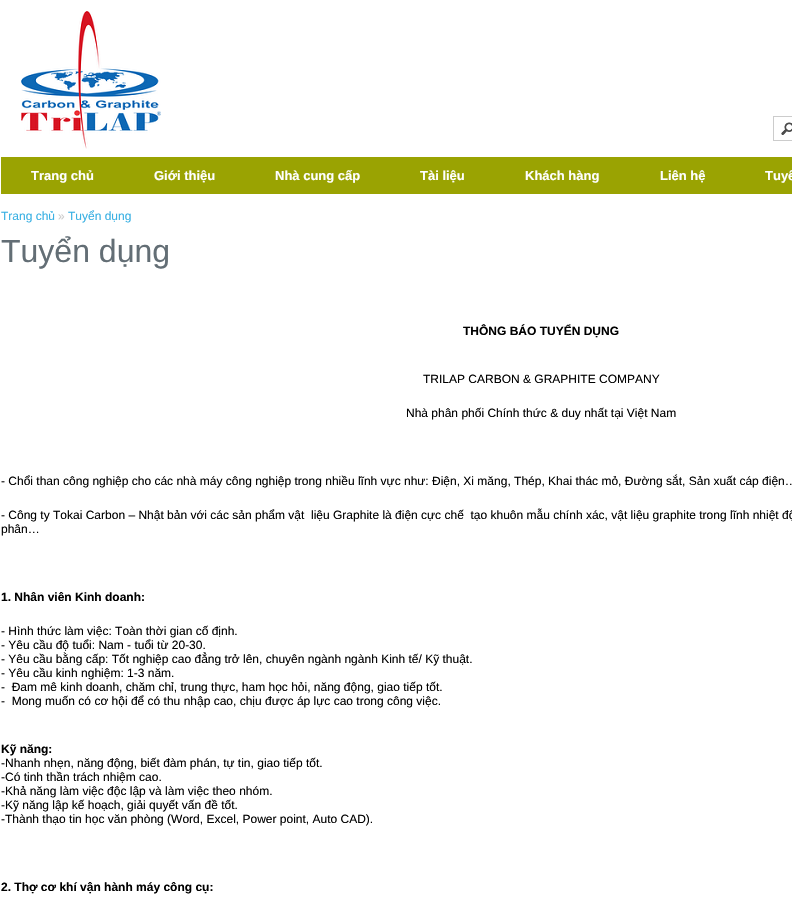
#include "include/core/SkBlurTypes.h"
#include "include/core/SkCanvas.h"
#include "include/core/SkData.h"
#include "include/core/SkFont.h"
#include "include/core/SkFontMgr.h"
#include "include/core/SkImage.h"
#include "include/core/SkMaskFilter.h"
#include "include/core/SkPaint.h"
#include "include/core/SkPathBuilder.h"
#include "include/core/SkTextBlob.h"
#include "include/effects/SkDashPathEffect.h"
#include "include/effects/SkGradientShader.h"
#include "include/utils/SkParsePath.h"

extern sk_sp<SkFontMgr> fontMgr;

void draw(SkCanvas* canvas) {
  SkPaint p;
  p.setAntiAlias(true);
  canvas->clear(SK_ColorWHITE);
  canvas->drawImageRect(SkImages::DeferredFromEncodedData(SkData::MakeFromFileName("images/1.png")), SkRect::MakeLTRB(21, 11, 161, 149), SkSamplingOptions());
  p.setStyle(SkPaint::kStroke_Style);
  p.setStrokeWidth(1);
  p.setColor(SkColorSetRGB(204, 204, 204));
  canvas->drawRect(SkRect::MakeLTRB(773.5f, 116.5f, 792.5f, 140.5f), p);
  canvas->drawImageRect(SkImages::DeferredFromEncodedData(SkData::MakeFromFileName("images/2.png")), SkRect::MakeLTRB(781, 122, 792, 135), SkSamplingOptions());
  p.setStyle(SkPaint::kFill_Style);
  p.setColor(SkColorSetRGB(154, 163, 2));
  canvas->drawRect(SkRect::MakeLTRB(1, 157, 792, 194), p);
  SkFont font1(fontMgr->matchFamilyStyle("Liberation Sans", SkFontStyle::Bold()), 13);
  font1.setSubpixel(true);
  p.setColor(SK_ColorWHITE);
  canvas->drawString("Trang chủ", 31, 180, font1, p);
  canvas->drawString("Giới thiệu", 154, 180, font1, p);
  canvas->drawString("Nhà cung cấp", 275, 180, font1, p);
  canvas->drawString("Tài liệu", 420, 180, font1, p);
  canvas->drawString("Khách hàng", 525, 180, font1, p);
  canvas->drawString("Liên hệ", 660, 180, font1, p);
  canvas->drawString("Tuyể", 765, 180, font1, p);
  SkFont font2(fontMgr->matchFamilyStyle("Liberation Sans", SkFontStyle::Normal()), 12);
  font2.setSubpixel(true);
  p.setColor(SkColorSetRGB(56, 176, 227));
  canvas->drawString("Trang chủ", 1, 220, font2, p);
  p.setColor(SkColorSetRGB(204, 204, 204));
  canvas->drawString("»", 58, 220, font2, p);
  p.setColor(SkColorSetRGB(56, 176, 227));
  canvas->drawString("Tuyển dụng", 68, 220, font2, p);
  SkFont font3(fontMgr->matchFamilyStyle("Liberation Sans", SkFontStyle::Normal()), 32);
  font3.setSubpixel(true);
  p.setColor(SkColorSetRGB(99, 110, 117));
  canvas->drawString("Tuyển dụng", 1, 262, font3, p);
  SkFont font4(fontMgr->matchFamilyStyle("Liberation Sans", SkFontStyle::Bold()), 12);
  font4.setSubpixel(true);
  p.setColor(SK_ColorBLACK);
  canvas->drawString("THÔNG BÁO TUYỂN DỤNG", 463, 335, font4, p);
  canvas->drawString("TRILAP CARBON & GRAPHITE COMPANY", 423, 383, font2, p);
  canvas->drawString("Nhà phân phối Chính thức & duy nhất tại Việt Nam", 406, 417, font2, p);
  canvas->drawString("- Chổi than công nghiệp cho các nhà máy công nghiệp trong nhiều lĩnh vực như: Điện, Xi măng, Thép, Khai thác mỏ, Đường sắt, Sản xuất cáp điện…", 1, 485, font2, p);
  canvas->drawString("- Công ty Tokai Carbon – Nhật bản với các sản phẩm vật  liệu Graphite là điện cực chế  tạo khuôn mẫu chính xác, vật liệu graphite trong lĩnh nhiệt độ", 1, 519, font2, p);
  canvas->drawString("phân…", 1, 533, font2, p);
  canvas->drawString("1. Nhân viên Kinh doanh:", 1, 601, font4, p);
  canvas->drawString("- Hình thức làm việc: Toàn thời gian cố định.", 1, 635, font2, p);
  canvas->drawString("- Yêu cầu độ tuổi: Nam - tuổi từ 20-30.", 1, 649, font2, p);
  canvas->drawString("- Yêu cầu bằng cấp: Tốt nghiệp cao đẳng trở lên, chuyên ngành ngành Kinh tế/ Kỹ thuật.", 1, 663, font2, p);
  canvas->drawString("- Yêu cầu kinh nghiệm: 1-3 năm.", 1, 677, font2, p);
  canvas->drawString("-  Đam mê kinh doanh, chăm chỉ, trung thực, ham học hỏi, năng động, giao tiếp tốt.", 1, 691, font2, p);
  canvas->drawString("-  Mong muốn có cơ hội để có thu nhập cao, chịu được áp lực cao trong công việc.", 1, 705, font2, p);
  canvas->drawString("Kỹ năng:", 1, 753, font4, p);
  canvas->drawString("-Nhanh nhẹn, năng động, biết đàm phán, tự tin, giao tiếp tốt.", 1, 767, font2, p);
  canvas->drawString("-Có tinh thần trách nhiệm cao.", 1, 781, font2, p);
  canvas->drawString("-Khả năng làm việc độc lập và làm việc theo nhóm.", 1, 795, font2, p);
  canvas->drawString("-Kỹ năng lập kế hoạch, giải quyết vấn đề tốt.", 1, 809, font2, p);
  canvas->drawString("-Thành thạo tin học văn phòng (Word, Excel, Power point, Auto CAD).", 1, 823, font2, p);
  canvas->drawString("2. Thợ cơ khí vận hành máy công cụ:", 1, 891, font4, p);
}
